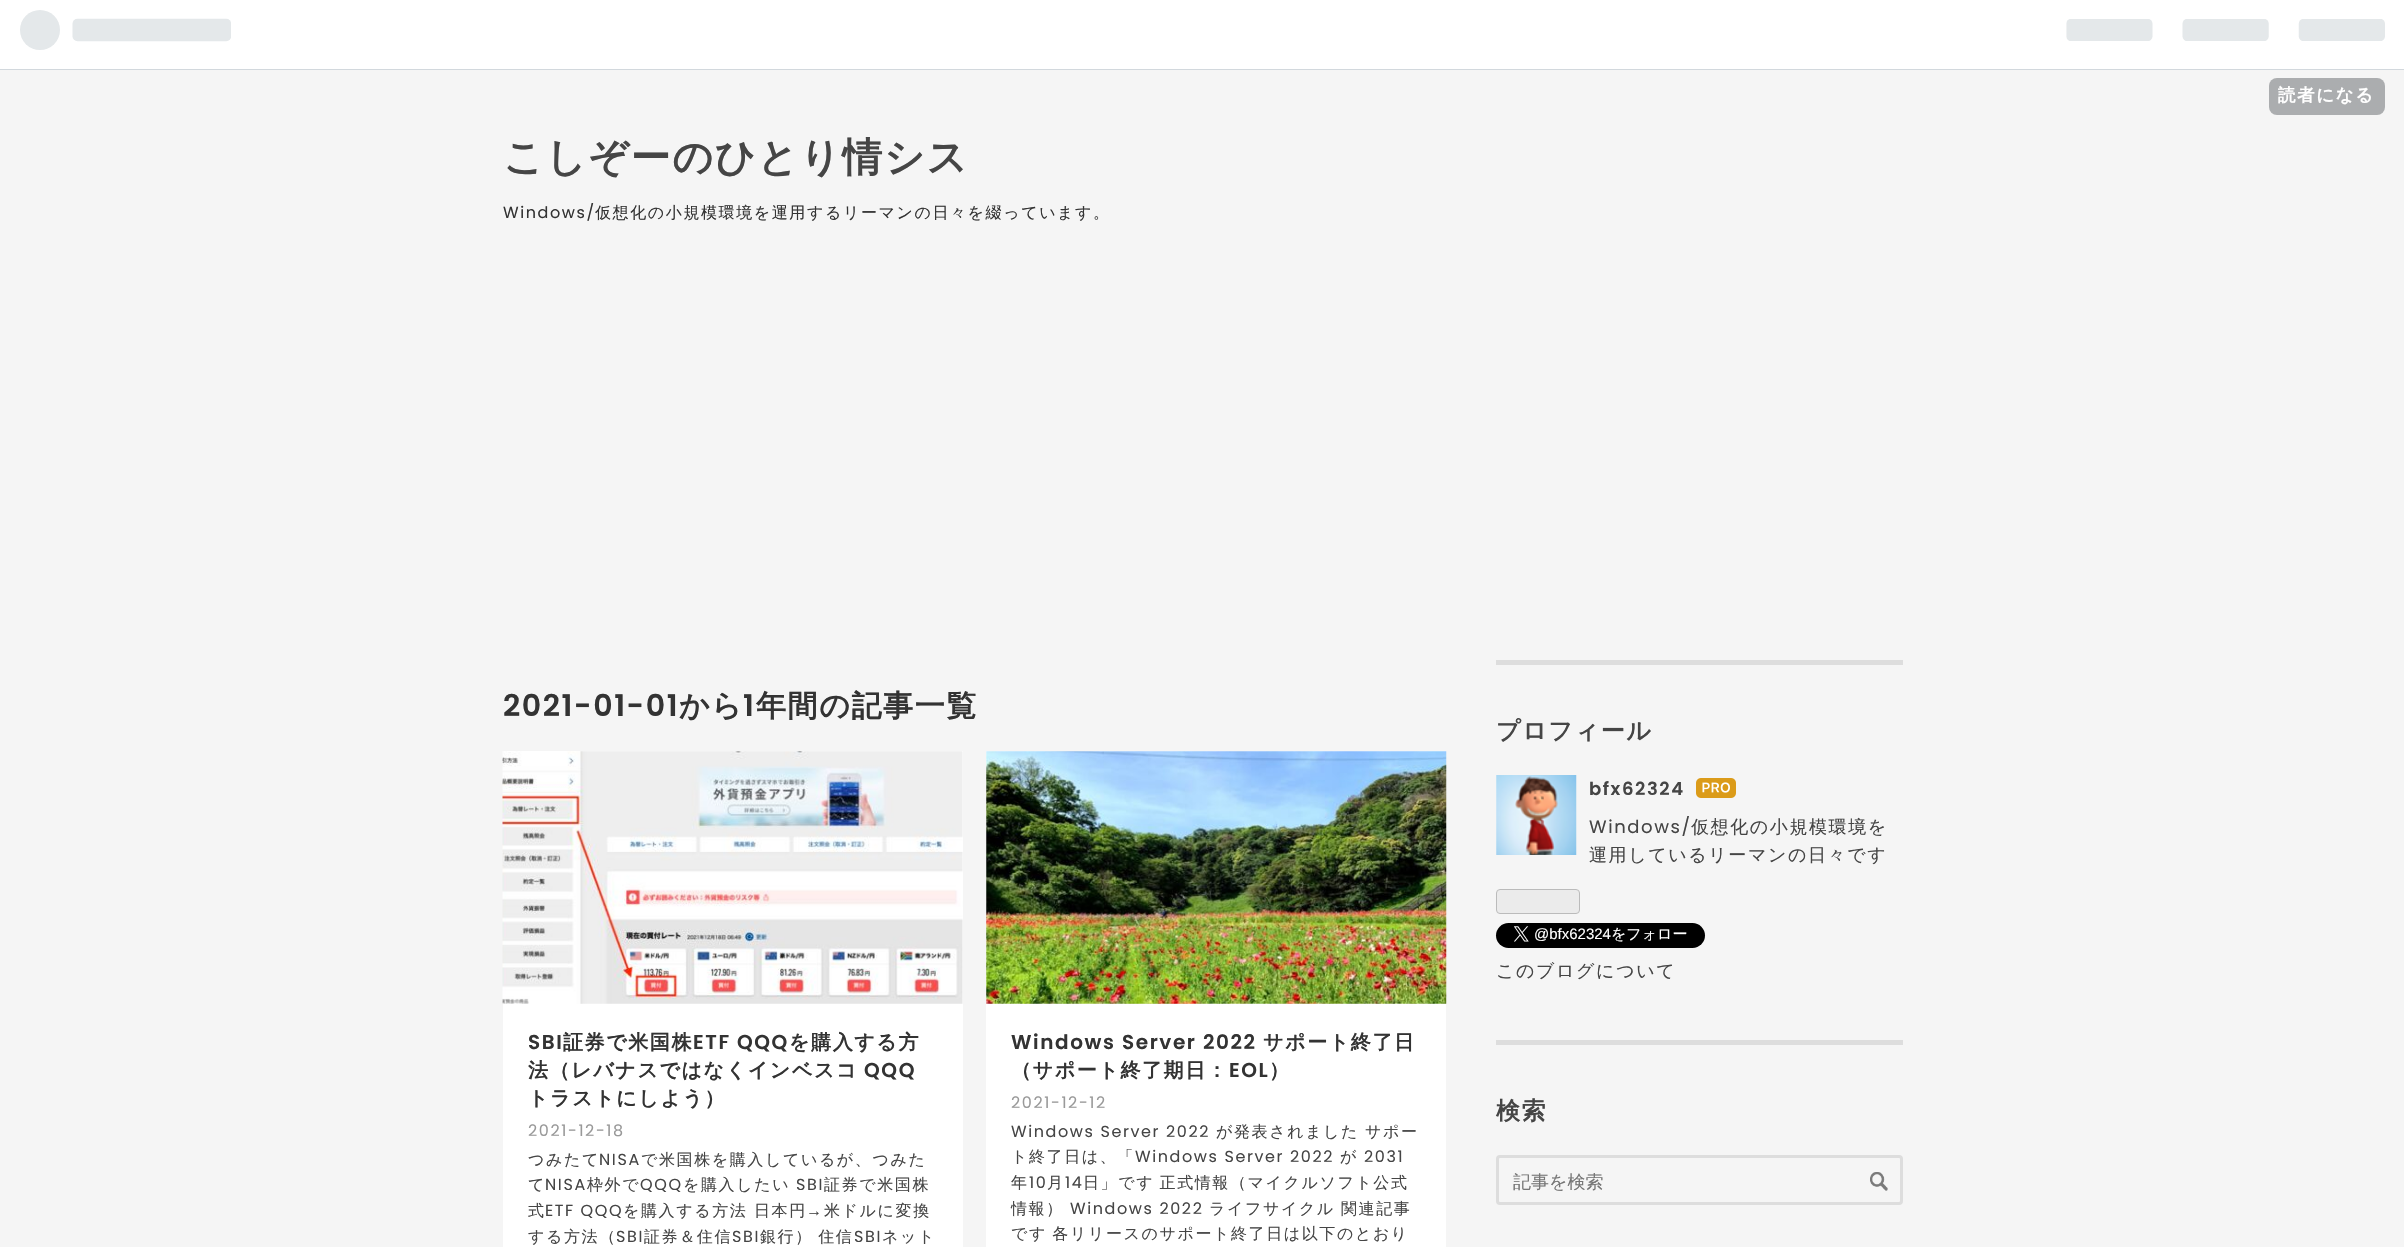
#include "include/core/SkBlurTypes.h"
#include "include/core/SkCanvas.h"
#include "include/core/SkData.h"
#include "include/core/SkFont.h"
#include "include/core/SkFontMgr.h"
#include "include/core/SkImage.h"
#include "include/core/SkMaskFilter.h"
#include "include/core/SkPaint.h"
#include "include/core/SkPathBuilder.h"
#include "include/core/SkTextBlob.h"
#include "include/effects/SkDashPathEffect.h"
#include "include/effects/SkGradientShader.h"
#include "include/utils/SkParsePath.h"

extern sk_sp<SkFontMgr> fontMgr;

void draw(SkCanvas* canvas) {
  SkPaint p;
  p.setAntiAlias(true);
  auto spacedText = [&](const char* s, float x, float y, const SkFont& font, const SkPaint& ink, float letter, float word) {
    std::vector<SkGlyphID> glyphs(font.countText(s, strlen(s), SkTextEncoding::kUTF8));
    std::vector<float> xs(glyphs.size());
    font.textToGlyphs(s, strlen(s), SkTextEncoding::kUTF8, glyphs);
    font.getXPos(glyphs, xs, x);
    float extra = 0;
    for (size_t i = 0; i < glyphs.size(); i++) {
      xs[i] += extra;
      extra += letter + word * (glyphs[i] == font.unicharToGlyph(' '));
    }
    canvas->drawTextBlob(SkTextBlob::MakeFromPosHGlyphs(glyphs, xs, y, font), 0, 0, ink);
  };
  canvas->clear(SkColorSetRGB(245, 245, 245));
  p.setColor(SK_ColorWHITE);
  canvas->drawRect(SkRect::MakeLTRB(0, 0, 2404, 69), p);
  p.setColor(SkColorSetRGB(210, 216, 221));
  canvas->drawRect(SkRect::MakeLTRB(0, 69, 2404, 70), p);
  canvas->drawImageRect(SkImages::DeferredFromEncodedData(SkData::MakeFromFileName("images/1.png")), SkRect::MakeLTRB(20, 10, 231, 50), SkSamplingOptions());
  canvas->drawImageRect(SkImages::DeferredFromEncodedData(SkData::MakeFromFileName("images/2.png")), SkRect::MakeLTRB(2066, 19, 2385, 41), SkSamplingOptions());
  p.setColor(SkColorSetRGB(171, 173, 175));
  canvas->drawRoundRect(SkRect::MakeLTRB(2269, 78, 2385, 115), 8, 8, p);
  p.setColor(SK_ColorWHITE);
  canvas->drawRect(SkRect::MakeLTRB(503, 751, 963, 1247), p);
  canvas->drawImageRect(SkImages::DeferredFromEncodedData(SkData::MakeFromFileName("images/3.png")), SkRect::MakeLTRB(502, 751, 963, 1004), SkSamplingOptions());
  canvas->drawRect(SkRect::MakeLTRB(986, 751, 1446, 1247), p);
  canvas->drawImageRect(SkImages::DeferredFromEncodedData(SkData::MakeFromFileName("images/4.png")), SkRect::MakeLTRB(986, 751, 1447, 1004), SkSamplingOptions());
  p.setColor(SkColorSetRGB(221, 221, 221));
  canvas->drawRect(SkRect::MakeLTRB(1496, 660, 1903, 665), p);
  canvas->drawImageRect(SkImages::DeferredFromEncodedData(SkData::MakeFromFileName("images/5.png")), SkRect::MakeLTRB(1496, 775, 1577, 855), SkSamplingOptions());
  canvas->drawImageRect(SkImages::DeferredFromEncodedData(SkData::MakeFromFileName("images/6.png")), SkRect::MakeLTRB(1696, 778, 1736, 798), SkSamplingOptions());
  p.setColor(SkColorSetRGB(235, 235, 235));
  canvas->drawRoundRect(SkRect::MakeLTRB(1496.5f, 889.5f, 1579.5f, 913.5f), 3.5f, 3.5f, p);
  p.setStyle(SkPaint::kStroke_Style);
  p.setStrokeWidth(1);
  p.setColor(SkColorSetRGB(187, 187, 187));
  canvas->drawRoundRect(SkRect::MakeLTRB(1496.5f, 889.5f, 1579.5f, 913.5f), 3.5f, 3.5f, p);
  p.setStyle(SkPaint::kFill_Style);
  p.setColor(SK_ColorBLACK);
  canvas->drawRoundRect(SkRect::MakeLTRB(1496, 923, 1705, 948), 12.5f, 12.5f, p);
  canvas->drawImageRect(SkImages::DeferredFromEncodedData(SkData::MakeFromFileName("images/7.png")), SkRect::MakeLTRB(1514, 926, 1529, 942), SkSamplingOptions());
  p.setColor(SkColorSetRGB(221, 221, 221));
  canvas->drawRect(SkRect::MakeLTRB(1496, 1040, 1903, 1045), p);
  p.setStyle(SkPaint::kStroke_Style);
  p.setStrokeWidth(3);
  canvas->drawRoundRect(SkRect::MakeLTRB(1497.5f, 1156.5f, 1901.5f, 1203.5f), 2.5f, 2.5f, p);
  canvas->drawImageRect(SkImages::DeferredFromEncodedData(SkData::MakeFromFileName("images/8.png")), SkRect::MakeLTRB(1870, 1172, 1888, 1191), SkSamplingOptions());
  SkFont font1(fontMgr->matchFamilyStyle("WenQuanYi Zen Hei", SkFontStyle::Bold()), 17.5f);
  font1.setSubpixel(true);
  p.setStyle(SkPaint::kFill_Style);
  p.setColor(SK_ColorWHITE);
  spacedText("読者になる", 2278, 101, font1, p, 1.6f, 0);
  SkFont font2(fontMgr->matchFamilyStyle("WenQuanYi Zen Hei", SkFontStyle::Bold()), 40);
  font2.setSubpixel(true);
  p.setColor(SkColorSetRGB(69, 69, 69));
  spacedText("こしぞーのひとり情シス", 503, 171, font2, p, 1.6f, 0);
  SkFont font3(fontMgr->matchFamilyStyle("Poppins", SkFontStyle::Normal()), 16);
  font3.setSubpixel(true);
  p.setColor(SkColorSetRGB(51, 51, 51));
  spacedText("Windows/", 503, 218, font3, p, 1.6f, 0);
  SkFont font4(fontMgr->matchFamilyStyle("WenQuanYi Zen Hei", SkFontStyle(500, SkFontStyle::kNormal_Width, SkFontStyle::kUpright_Slant)), 16);
  font4.setSubpixel(true);
  spacedText("仮想化の小規模環境を運用するリーマンの日々を綴っています。", 595, 218, font4, p, 1.6f, 0);
  SkFont font5(fontMgr->matchFamilyStyle("Poppins", SkFontStyle(600, SkFontStyle::kNormal_Width, SkFontStyle::kUpright_Slant)), 30);
  font5.setSubpixel(true);
  spacedText("2021-01-01", 503, 716, font5, p, 1.6f, 0);
  SkFont font6(fontMgr->matchFamilyStyle("WenQuanYi Zen Hei", SkFontStyle::Bold()), 30);
  font6.setSubpixel(true);
  spacedText("から", 679, 716, font6, p, 1.6f, 0);
  spacedText("1", 743, 716, font5, p, 1.6f, 0);
  spacedText("年間の記事一覧", 756, 716, font6, p, 1.6f, 0);
  SkFont font7(fontMgr->matchFamilyStyle("Poppins", SkFontStyle(600, SkFontStyle::kNormal_Width, SkFontStyle::kUpright_Slant)), 20);
  font7.setSubpixel(true);
  spacedText("SBI", 528, 1049, font7, p, 1.6f, 0);
  SkFont font8(fontMgr->matchFamilyStyle("WenQuanYi Zen Hei", SkFontStyle::Bold()), 20);
  font8.setSubpixel(true);
  spacedText("証券で米国株", 563, 1049, font8, p, 1.6f, 0);
  spacedText("ETF QQQ", 693, 1049, font7, p, 1.6f, 0);
  spacedText("を購入する方", 789, 1049, font8, p, 1.6f, 0);
  spacedText("法（レバナスではなくインベスコ", 528, 1077, font8, p, 1.6f, 0);
  spacedText("QQQ", 864, 1077, font7, p, 1.6f, 0);
  spacedText("トラストにしよう）", 528, 1105, font8, p, 1.6f, 0);
  p.setColor(SkColorSetRGB(153, 153, 153));
  spacedText("2021-12-18", 528, 1136, font3, p, 1.6f, 0);
  p.setColor(SkColorSetRGB(69, 69, 69));
  spacedText("つみたて", 528, 1165, font4, p, 1.6f, 0);
  spacedText("NISA", 599, 1165, font3, p, 1.6f, 0);
  spacedText("で米国株を購入しているが、つみた", 641, 1165, font4, p, 1.6f, 0);
  spacedText("て", 528, 1190, font4, p, 1.6f, 0);
  spacedText("NISA", 545, 1190, font3, p, 1.6f, 0);
  spacedText("枠外で", 587, 1190, font4, p, 1.6f, 0);
  spacedText("QQQ", 640, 1190, font3, p, 1.6f, 0);
  spacedText("を購入したい", 683, 1190, font4, p, 1.6f, 0);
  spacedText("SBI", 796, 1190, font3, p, 1.6f, 0);
  spacedText("証券で米国株", 824, 1190, font4, p, 1.6f, 0);
  spacedText("式", 528, 1216, font4, p, 1.6f, 0);
  spacedText("ETF QQQ", 545, 1216, font3, p, 1.6f, 0);
  spacedText("を購入する方法", 623, 1216, font4, p, 1.6f, 0);
  spacedText("日本円", 754, 1216, font4, p, 1.6f, 0);
  SkFont font9(fontMgr->matchFamilyStyle("Liberation Sans", SkFontStyle::Normal()), 16);
  font9.setSubpixel(true);
  spacedText("→", 806, 1216, font9, p, 1.6f, 0);
  spacedText("米ドルに変換", 824, 1216, font4, p, 1.6f, 0);
  spacedText("する方法（", 528, 1242, font4, p, 1.6f, 0);
  spacedText("SBI", 616, 1242, font3, p, 1.6f, 0);
  spacedText("証券＆住信", 644, 1242, font4, p, 1.6f, 0);
  spacedText("SBI", 732, 1242, font3, p, 1.6f, 0);
  spacedText("銀行） 住信", 760, 1242, font4, p, 1.6f, -1);
  spacedText("SBI", 854, 1242, font3, p, 1.6f, 0);
  spacedText("ネット", 882, 1242, font4, p, 1.6f, 0);
  p.setColor(SkColorSetRGB(51, 51, 51));
  spacedText("Windows Server 2022", 1011, 1049, font7, p, 1.6f, 0);
  spacedText("サポート終了日", 1263, 1049, font8, p, 1.6f, 0);
  spacedText("（サポート終了期日：", 1011, 1077, font8, p, 1.6f, 0);
  spacedText("EOL", 1229, 1077, font7, p, 1.6f, 0);
  spacedText("）", 1269, 1077, font8, p, 1.6f, 0);
  p.setColor(SkColorSetRGB(153, 153, 153));
  spacedText("2021-12-12", 1011, 1108, font3, p, 1.6f, 0);
  p.setColor(SkColorSetRGB(69, 69, 69));
  spacedText("Windows Server 2022", 1011, 1137, font3, p, 1.6f, 0);
  spacedText("が発表されました", 1216, 1137, font4, p, 1.6f, 0);
  spacedText("サポー", 1365, 1137, font4, p, 1.6f, 0);
  spacedText("ト終了日は、「", 1011, 1162, font4, p, 1.6f, 0);
  spacedText("Windows Server 2022", 1135, 1162, font3, p, 1.6f, 0);
  spacedText("が", 1340, 1162, font4, p, 1.6f, 0);
  spacedText("2031", 1364, 1162, font3, p, 1.6f, 0);
  spacedText("年", 1011, 1188, font4, p, 1.6f, 0);
  spacedText("10", 1029, 1188, font3, p, 1.6f, 0);
  spacedText("月", 1047, 1188, font4, p, 1.6f, 0);
  spacedText("14", 1065, 1188, font3, p, 1.6f, 0);
  spacedText("日」です 正式情報（マイクルソフト公式", 1083, 1188, font4, p, 1.6f, -1);
  spacedText("情報）", 1011, 1214, font4, p, 1.6f, 0);
  spacedText("Windows 2022", 1070, 1214, font3, p, 1.6f, 0);
  spacedText("ライフサイクル", 1209, 1214, font4, p, 1.6f, 0);
  spacedText("関連記事", 1341, 1214, font4, p, 1.6f, 0);
  spacedText("です 各リリースのサポート終了日は以下のとおり", 1011, 1239, font4, p, 1.6f, -1);
  SkFont font10(fontMgr->matchFamilyStyle("WenQuanYi Zen Hei", SkFontStyle::Bold()), 24);
  font10.setSubpixel(true);
  spacedText("プロフィール", 1496, 739, font10, p, 1.6f, 0);
  SkFont font11(fontMgr->matchFamilyStyle("Poppins", SkFontStyle(600, SkFontStyle::kNormal_Width, SkFontStyle::kUpright_Slant)), 18);
  font11.setSubpixel(true);
  spacedText("bfx62324", 1589, 795, font11, p, 1.6f, 0);
  SkFont font12(fontMgr->matchFamilyStyle("Poppins", SkFontStyle::Normal()), 18);
  font12.setSubpixel(true);
  spacedText("Windows/", 1589, 833, font12, p, 1.6f, 0);
  SkFont font13(fontMgr->matchFamilyStyle("WenQuanYi Zen Hei", SkFontStyle(500, SkFontStyle::kNormal_Width, SkFontStyle::kUpright_Slant)), 18);
  font13.setSubpixel(true);
  spacedText("仮想化の小規模環境を", 1691, 833, font13, p, 1.6f, 0);
  spacedText("運用しているリーマンの日々です", 1589, 861, font13, p, 1.6f, 0);
  SkFont font14(fontMgr->matchFamilyStyle("Liberation Sans", SkFontStyle::Normal()), 15);
  font14.setSubpixel(true);
  p.setColor(SK_ColorWHITE);
  canvas->drawString("@bfx62324", 1534, 939, font14, p);
  SkFont font15(fontMgr->matchFamilyStyle("WenQuanYi Zen Hei", SkFontStyle(500, SkFontStyle::kNormal_Width, SkFontStyle::kUpright_Slant)), 15);
  font15.setSubpixel(true);
  canvas->drawString("をフォロー", 1611, 939, font15, p);
  p.setColor(SkColorSetRGB(69, 69, 69));
  spacedText("このブログについて", 1496, 977, font13, p, 1.6f, 0);
  spacedText("検索", 1496, 1119, font10, p, 1.6f, 0);
  p.setColor(SkColorSetRGB(117, 117, 117));
  canvas->drawString("記事を検索", 1513, 1188, font13, p);
}
